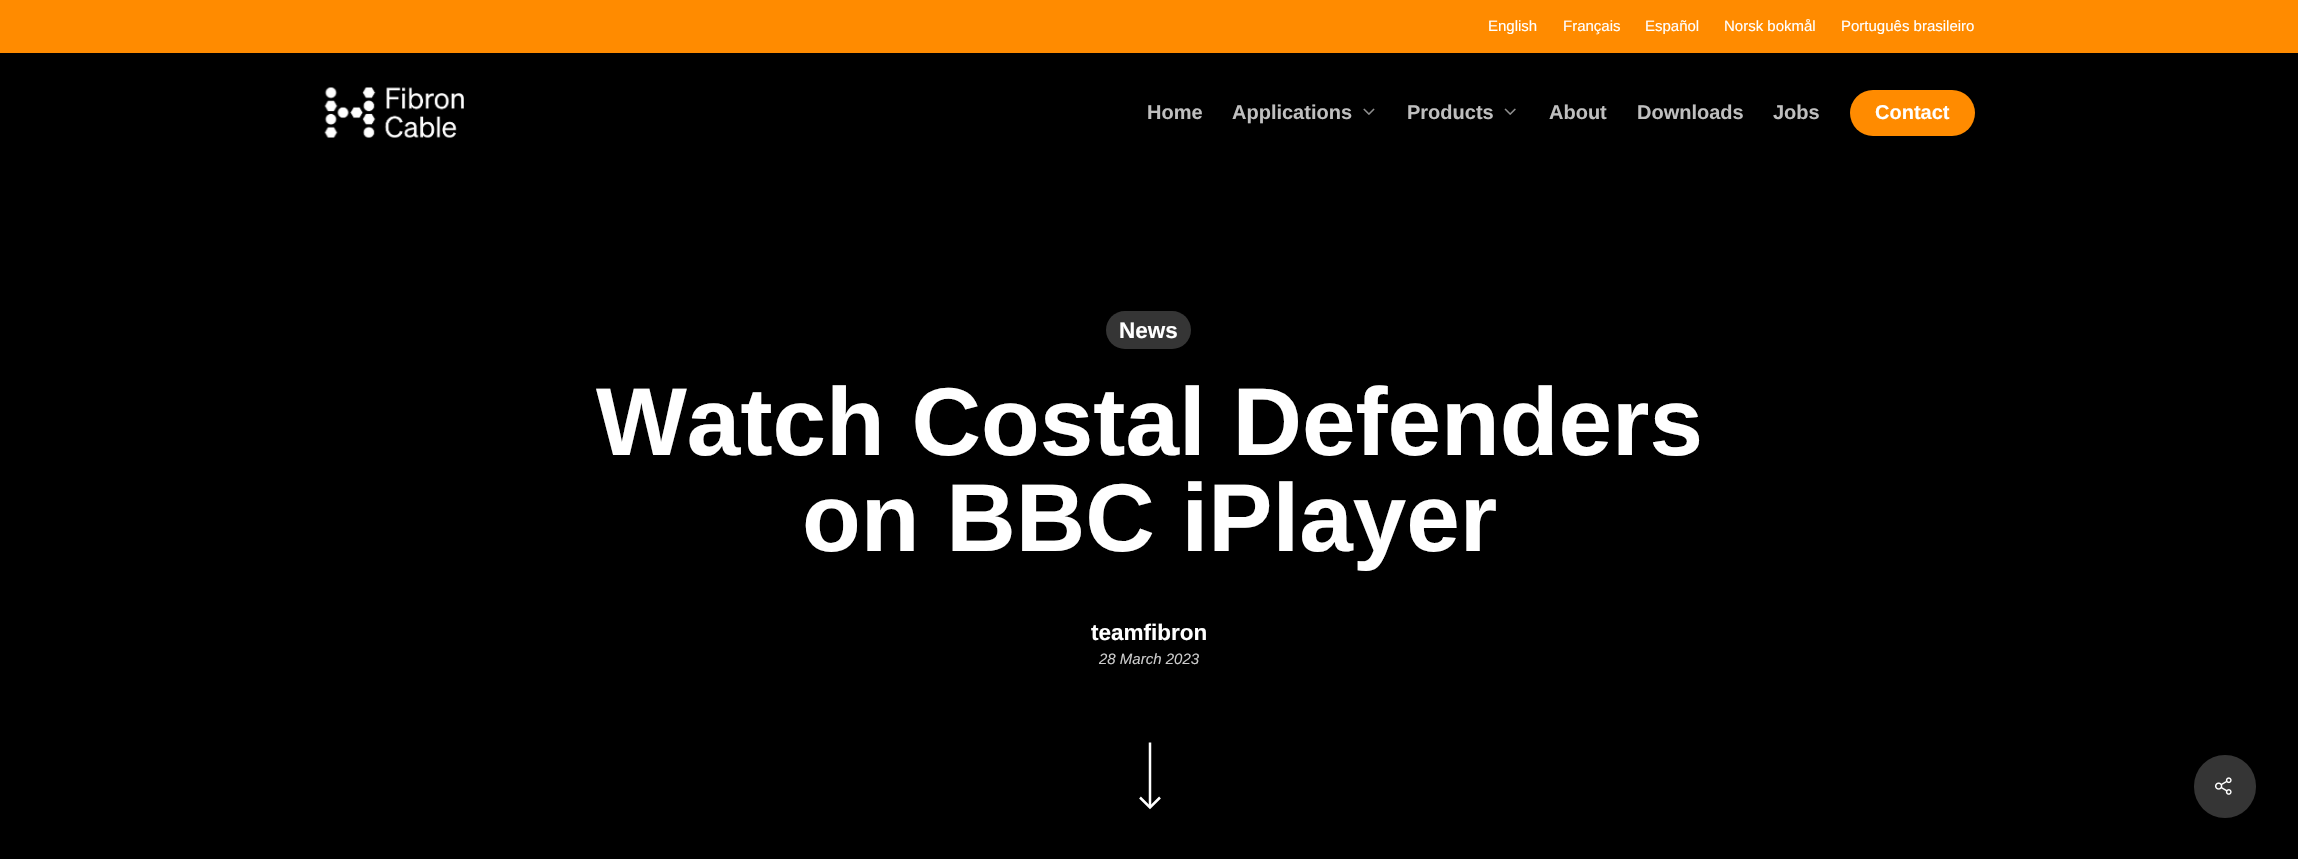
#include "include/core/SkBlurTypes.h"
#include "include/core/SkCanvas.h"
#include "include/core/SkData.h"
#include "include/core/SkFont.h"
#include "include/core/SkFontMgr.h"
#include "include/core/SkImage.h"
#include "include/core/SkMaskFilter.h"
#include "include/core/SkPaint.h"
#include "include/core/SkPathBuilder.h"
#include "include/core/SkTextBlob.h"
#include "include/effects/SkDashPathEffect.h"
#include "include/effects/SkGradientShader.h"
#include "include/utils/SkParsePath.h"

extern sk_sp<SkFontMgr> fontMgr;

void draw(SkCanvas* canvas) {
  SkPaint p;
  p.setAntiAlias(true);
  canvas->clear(SK_ColorBLACK);
  p.setColor(SkColorSetRGB(255, 139, 0));
  canvas->drawRect(SkRect::MakeLTRB(0, 0, 2298, 53), p);
  canvas->drawImageRect(SkImages::DeferredFromEncodedData(SkData::MakeFromFileName("images/1.png")), SkRect::MakeLTRB(324, 87, 464, 138), SkSamplingOptions());
  canvas->drawImageRect(SkImages::DeferredFromEncodedData(SkData::MakeFromFileName("images/2.png")), SkRect::MakeLTRB(1363, 108, 1375, 115), SkSamplingOptions());
  canvas->drawImageRect(SkImages::DeferredFromEncodedData(SkData::MakeFromFileName("images/3.png")), SkRect::MakeLTRB(1504, 108, 1516, 115), SkSamplingOptions());
  canvas->drawRoundRect(SkRect::MakeLTRB(1850, 90, 1975, 136), 23, 23, p);
  p.setColor(SkColorSetRGB(53, 53, 53));
  canvas->drawRoundRect(SkRect::MakeLTRB(1106, 311, 1191, 349), 19, 19, p);
  p.setStyle(SkPaint::kStroke_Style);
  p.setStrokeWidth(2.5f);
  p.setColor(SK_ColorWHITE);
  canvas->drawPath(SkPathBuilder().moveTo(1150, 742.5f).lineTo(1150, 806).detach(), p);
  canvas->drawPath(SkPathBuilder().moveTo(1140, 797.5f).lineTo(1150, 807.5f).lineTo(1160, 797.5f).detach(), p);
  p.setStyle(SkPaint::kFill_Style);
  p.setColor(SkColorSetRGB(53, 53, 53));
  canvas->drawRoundRect(SkRect::MakeLTRB(2194, 755, 2256, 818), 31, 31, p);
  canvas->drawImageRect(SkImages::DeferredFromEncodedData(SkData::MakeFromFileName("images/4.png")), SkRect::MakeLTRB(2215, 777, 2232, 795), SkSamplingOptions());
  SkFont font1(fontMgr->matchFamilyStyle("Liberation Sans", SkFontStyle::Normal()), 15);
  font1.setSubpixel(true);
  p.setColor(SK_ColorWHITE);
  canvas->drawString("English", 1488, 31, font1, p);
  canvas->drawString("Français", 1563, 31, font1, p);
  canvas->drawString("Español", 1645, 31, font1, p);
  canvas->drawString("Norsk bokmål", 1724, 31, font1, p);
  canvas->drawString("Português brasileiro", 1841, 31, font1, p);
  SkFont font2(fontMgr->matchFamilyStyle("Liberation Sans", SkFontStyle::Bold()), 20);
  font2.setSubpixel(true);
  p.setColor(SkColorSetRGB(191, 191, 191));
  canvas->drawString("Home", 1147, 119, font2, p);
  canvas->drawString("Applications", 1232, 119, font2, p);
  canvas->drawString("Products", 1407, 119, font2, p);
  canvas->drawString("About", 1549, 119, font2, p);
  canvas->drawString("Downloads", 1637, 119, font2, p);
  canvas->drawString("Jobs", 1773, 119, font2, p);
  p.setColor(SK_ColorWHITE);
  canvas->drawString("Contact", 1875, 119, font2, p);
  SkFont font3(fontMgr->matchFamilyStyle("Liberation Sans", SkFontStyle::Bold()), 22.5f);
  font3.setSubpixel(true);
  canvas->drawString("News", 1119, 338, font3, p);
  SkFont font4(fontMgr->matchFamilyStyle("Liberation Sans", SkFontStyle::Bold()), 96.25f);
  font4.setSubpixel(true);
  canvas->drawString("Watch Costal Defenders", 596, 455, font4, p);
  canvas->drawString("on BBC iPlayer", 802, 551, font4, p);
  canvas->drawString("teamfibron", 1091, 640, font3, p);
  SkFont font5(fontMgr->matchFamilyStyle("Liberation Sans", SkFontStyle::Italic()), 15);
  font5.setSubpixel(true);
  p.setColor(SkColorSetRGB(204, 204, 204));
  canvas->drawString("28 March 2023", 1099, 664, font5, p);
}
